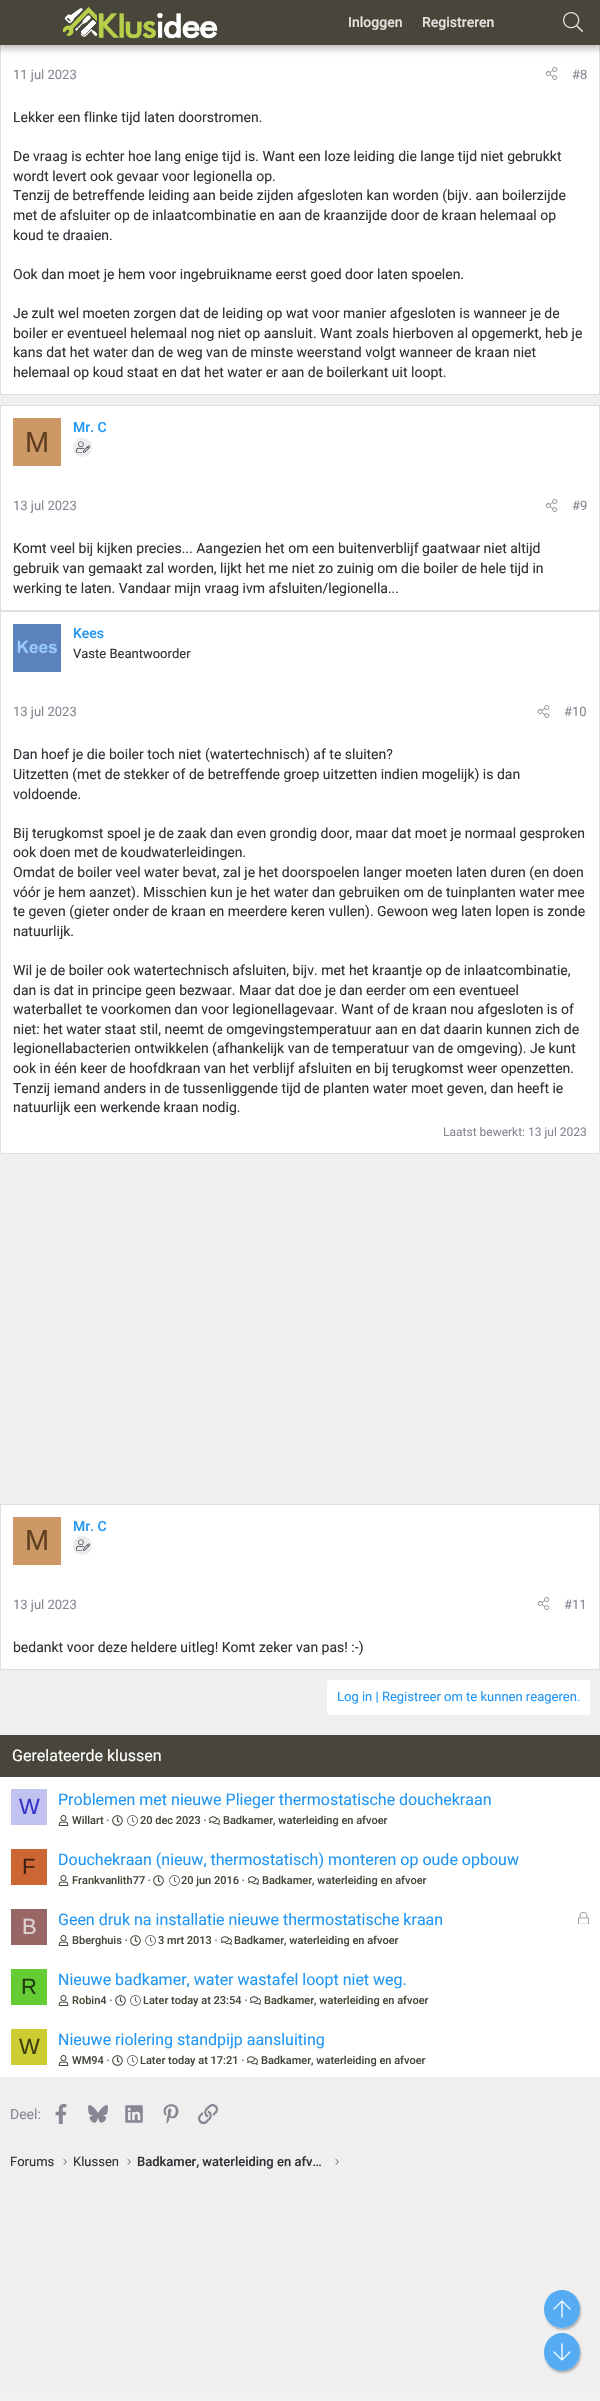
#include "include/core/SkBlurTypes.h"
#include "include/core/SkCanvas.h"
#include "include/core/SkData.h"
#include "include/core/SkFont.h"
#include "include/core/SkFontMgr.h"
#include "include/core/SkImage.h"
#include "include/core/SkMaskFilter.h"
#include "include/core/SkPaint.h"
#include "include/core/SkPathBuilder.h"
#include "include/core/SkTextBlob.h"
#include "include/effects/SkDashPathEffect.h"
#include "include/effects/SkGradientShader.h"
#include "include/utils/SkParsePath.h"

extern sk_sp<SkFontMgr> fontMgr;

void draw(SkCanvas* canvas) {
  SkPaint p;
  p.setAntiAlias(true);
  canvas->clear(SkColorSetRGB(239, 239, 239));
  p.setColor(SK_ColorWHITE);
  canvas->drawRect(SkRect::MakeLTRB(1, 45, 599, 394), p);
  p.setStyle(SkPaint::kStroke_Style);
  p.setStrokeWidth(1);
  p.setColor(SkColorSetRGB(223, 223, 223));
  canvas->drawRect(SkRect::MakeLTRB(0.5f, -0.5f, 599.5f, 394.5f), p);
  p.setStyle(SkPaint::kFill_Style);
  p.setColor(SkColorSetARGB(77, 0, 0, 0));
  p.setMaskFilter(SkMaskFilter::MakeBlur(kNormal_SkBlurStyle, 4));
  canvas->drawRect(SkRect::MakeLTRB(-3, -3, 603, 48), p);
  p.setMaskFilter(nullptr);
  p.setColor(SkColorSetRGB(72, 70, 58));
  canvas->drawRect(SkRect::MakeLTRB(0, 0, 600, 45), p);
  canvas->drawImageRect(SkImages::DeferredFromEncodedData(SkData::MakeFromFileName("images/1.png")), SkRect::MakeLTRB(62, 7, 218, 39), SkSamplingOptions());
  canvas->drawImageRect(SkImages::DeferredFromEncodedData(SkData::MakeFromFileName("images/2.png")), SkRect::MakeLTRB(563, 12, 583, 32), SkSamplingOptions());
  canvas->drawImageRect(SkImages::DeferredFromEncodedData(SkData::MakeFromFileName("images/3.png")), SkRect::MakeLTRB(545, 67, 558, 80), SkSamplingOptions());
  p.setColor(SK_ColorWHITE);
  canvas->drawRect(SkRect::MakeLTRB(0.5f, 405.5f, 599.5f, 610.5f), p);
  p.setStyle(SkPaint::kStroke_Style);
  p.setColor(SkColorSetRGB(223, 223, 223));
  canvas->drawRect(SkRect::MakeLTRB(0.5f, 405.5f, 599.5f, 610.5f), p);
  p.setStyle(SkPaint::kFill_Style);
  p.setColor(SkColorSetRGB(235, 236, 238));
  canvas->drawCircle(82.5f, 447.5f, 9.5f, p);
  canvas->drawImageRect(SkImages::DeferredFromEncodedData(SkData::MakeFromFileName("images/4.png")), SkRect::MakeLTRB(76, 441, 90, 453), SkSamplingOptions());
  p.setColor(SkColorSetRGB(204, 153, 102));
  canvas->drawRect(SkRect::MakeLTRB(13, 418, 61, 466), p);
  canvas->drawImageRect(SkImages::DeferredFromEncodedData(SkData::MakeFromFileName("images/3.png")), SkRect::MakeLTRB(545, 499, 558, 512), SkSamplingOptions());
  p.setColor(SK_ColorWHITE);
  canvas->drawRect(SkRect::MakeLTRB(0.5f, 611.5f, 599.5f, 1153.5f), p);
  p.setStyle(SkPaint::kStroke_Style);
  p.setColor(SkColorSetRGB(223, 223, 223));
  canvas->drawRect(SkRect::MakeLTRB(0.5f, 611.5f, 599.5f, 1153.5f), p);
  canvas->drawImageRect(SkImages::DeferredFromEncodedData(SkData::MakeFromFileName("images/5.png")), SkRect::MakeLTRB(13, 624, 61, 672), SkSamplingOptions());
  canvas->drawImageRect(SkImages::DeferredFromEncodedData(SkData::MakeFromFileName("images/3.png")), SkRect::MakeLTRB(537, 705, 550, 718), SkSamplingOptions());
  p.setStyle(SkPaint::kFill_Style);
  p.setColor(SK_ColorWHITE);
  canvas->drawRect(SkRect::MakeLTRB(0.5f, 1504.5f, 599.5f, 1669.5f), p);
  p.setStyle(SkPaint::kStroke_Style);
  p.setColor(SkColorSetRGB(223, 223, 223));
  canvas->drawRect(SkRect::MakeLTRB(0.5f, 1504.5f, 599.5f, 1669.5f), p);
  p.setStyle(SkPaint::kFill_Style);
  p.setColor(SkColorSetRGB(235, 236, 238));
  canvas->drawCircle(82.5f, 1545.5f, 9.5f, p);
  canvas->drawImageRect(SkImages::DeferredFromEncodedData(SkData::MakeFromFileName("images/4.png")), SkRect::MakeLTRB(76, 1539, 90, 1551), SkSamplingOptions());
  p.setColor(SkColorSetRGB(204, 153, 102));
  canvas->drawRect(SkRect::MakeLTRB(13, 1517, 61, 1565), p);
  canvas->drawImageRect(SkImages::DeferredFromEncodedData(SkData::MakeFromFileName("images/3.png")), SkRect::MakeLTRB(537, 1597, 550, 1610), SkSamplingOptions());
  p.setColor(SK_ColorWHITE);
  canvas->drawRoundRect(SkRect::MakeLTRB(327, 1680, 590, 1715), 3, 3, p);
  canvas->drawRect(SkRect::MakeLTRB(0, 1777, 600, 2077), p);
  p.setColor(SkColorSetRGB(72, 70, 58));
  canvas->drawRect(SkRect::MakeLTRB(0, 1735, 600, 1777), p);
  p.setColor(SkColorSetRGB(194, 194, 240));
  canvas->drawRect(SkRect::MakeLTRB(11, 1789, 47, 1825), p);
  canvas->drawImageRect(SkImages::DeferredFromEncodedData(SkData::MakeFromFileName("images/6.png")), SkRect::MakeLTRB(58, 1815, 69, 1826), SkSamplingOptions());
  canvas->drawImageRect(SkImages::DeferredFromEncodedData(SkData::MakeFromFileName("images/7.png")), SkRect::MakeLTRB(112, 1815, 123, 1826), SkSamplingOptions());
  canvas->drawImageRect(SkImages::DeferredFromEncodedData(SkData::MakeFromFileName("images/8.png")), SkRect::MakeLTRB(127, 1815, 138, 1826), SkSamplingOptions());
  canvas->drawImageRect(SkImages::DeferredFromEncodedData(SkData::MakeFromFileName("images/9.png")), SkRect::MakeLTRB(209, 1816, 220, 1825), SkSamplingOptions());
  p.setColor(SkColorSetRGB(204, 102, 51));
  canvas->drawRect(SkRect::MakeLTRB(11, 1849, 47, 1885), p);
  canvas->drawImageRect(SkImages::DeferredFromEncodedData(SkData::MakeFromFileName("images/6.png")), SkRect::MakeLTRB(58, 1875, 69, 1886), SkSamplingOptions());
  canvas->drawImageRect(SkImages::DeferredFromEncodedData(SkData::MakeFromFileName("images/7.png")), SkRect::MakeLTRB(153, 1875, 164, 1886), SkSamplingOptions());
  canvas->drawImageRect(SkImages::DeferredFromEncodedData(SkData::MakeFromFileName("images/8.png")), SkRect::MakeLTRB(169, 1875, 180, 1886), SkSamplingOptions());
  canvas->drawImageRect(SkImages::DeferredFromEncodedData(SkData::MakeFromFileName("images/10.png")), SkRect::MakeLTRB(248, 1876, 259, 1885), SkSamplingOptions());
  p.setColor(SkColorSetRGB(153, 102, 102));
  canvas->drawRect(SkRect::MakeLTRB(11, 1909, 47, 1945), p);
  canvas->drawImageRect(SkImages::DeferredFromEncodedData(SkData::MakeFromFileName("images/11.png")), SkRect::MakeLTRB(578, 1912, 589, 1924), SkSamplingOptions());
  canvas->drawImageRect(SkImages::DeferredFromEncodedData(SkData::MakeFromFileName("images/6.png")), SkRect::MakeLTRB(58, 1935, 69, 1946), SkSamplingOptions());
  canvas->drawImageRect(SkImages::DeferredFromEncodedData(SkData::MakeFromFileName("images/7.png")), SkRect::MakeLTRB(130, 1935, 141, 1946), SkSamplingOptions());
  canvas->drawImageRect(SkImages::DeferredFromEncodedData(SkData::MakeFromFileName("images/8.png")), SkRect::MakeLTRB(145, 1935, 156, 1946), SkSamplingOptions());
  canvas->drawImageRect(SkImages::DeferredFromEncodedData(SkData::MakeFromFileName("images/9.png")), SkRect::MakeLTRB(221, 1936, 232, 1945), SkSamplingOptions());
  p.setColor(SkColorSetRGB(102, 204, 51));
  canvas->drawRect(SkRect::MakeLTRB(11, 1969, 47, 2005), p);
  canvas->drawImageRect(SkImages::DeferredFromEncodedData(SkData::MakeFromFileName("images/12.png")), SkRect::MakeLTRB(58, 1995, 69, 2006), SkSamplingOptions());
  canvas->drawImageRect(SkImages::DeferredFromEncodedData(SkData::MakeFromFileName("images/13.png")), SkRect::MakeLTRB(115, 1995, 126, 2006), SkSamplingOptions());
  canvas->drawImageRect(SkImages::DeferredFromEncodedData(SkData::MakeFromFileName("images/8.png")), SkRect::MakeLTRB(130, 1995, 141, 2006), SkSamplingOptions());
  canvas->drawImageRect(SkImages::DeferredFromEncodedData(SkData::MakeFromFileName("images/14.png")), SkRect::MakeLTRB(250, 1996, 261, 2005), SkSamplingOptions());
  p.setColor(SkColorSetRGB(204, 204, 51));
  canvas->drawRect(SkRect::MakeLTRB(11, 2029, 47, 2065), p);
  canvas->drawImageRect(SkImages::DeferredFromEncodedData(SkData::MakeFromFileName("images/6.png")), SkRect::MakeLTRB(58, 2055, 69, 2066), SkSamplingOptions());
  canvas->drawImageRect(SkImages::DeferredFromEncodedData(SkData::MakeFromFileName("images/7.png")), SkRect::MakeLTRB(112, 2055, 123, 2066), SkSamplingOptions());
  canvas->drawImageRect(SkImages::DeferredFromEncodedData(SkData::MakeFromFileName("images/8.png")), SkRect::MakeLTRB(127, 2055, 138, 2066), SkSamplingOptions());
  canvas->drawImageRect(SkImages::DeferredFromEncodedData(SkData::MakeFromFileName("images/15.png")), SkRect::MakeLTRB(247, 2056, 258, 2065), SkSamplingOptions());
  canvas->drawImageRect(SkImages::DeferredFromEncodedData(SkData::MakeFromFileName("images/16.png")), SkRect::MakeLTRB(55, 2104, 67, 2124), SkSamplingOptions());
  canvas->drawImageRect(SkImages::DeferredFromEncodedData(SkData::MakeFromFileName("images/17.png")), SkRect::MakeLTRB(88, 2105, 108, 2123), SkSamplingOptions());
  canvas->drawImageRect(SkImages::DeferredFromEncodedData(SkData::MakeFromFileName("images/18.png")), SkRect::MakeLTRB(125, 2105, 143, 2123), SkSamplingOptions());
  canvas->drawImageRect(SkImages::DeferredFromEncodedData(SkData::MakeFromFileName("images/19.png")), SkRect::MakeLTRB(163, 2104, 179, 2124), SkSamplingOptions());
  canvas->drawImageRect(SkImages::DeferredFromEncodedData(SkData::MakeFromFileName("images/20.png")), SkRect::MakeLTRB(198, 2104, 218, 2124), SkSamplingOptions());
  canvas->drawImageRect(SkImages::DeferredFromEncodedData(SkData::MakeFromFileName("images/21.png")), SkRect::MakeLTRB(63, 2159, 67, 2165), SkSamplingOptions());
  canvas->drawImageRect(SkImages::DeferredFromEncodedData(SkData::MakeFromFileName("images/21.png")), SkRect::MakeLTRB(127, 2159, 131, 2165), SkSamplingOptions());
  canvas->drawImageRect(SkImages::DeferredFromEncodedData(SkData::MakeFromFileName("images/21.png")), SkRect::MakeLTRB(335, 2159, 339, 2165), SkSamplingOptions());
  canvas->save();
  canvas->clipPath(SkPathBuilder(SkPathFillType::kEvenOdd).moveTo(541, 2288).lineTo(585, 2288).lineTo(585, 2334).lineTo(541, 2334).close().moveTo(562, 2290).cubicTo(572, 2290, 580, 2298.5f, 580, 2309).cubicTo(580, 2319.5f, 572, 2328, 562, 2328).cubicTo(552, 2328, 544, 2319.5f, 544, 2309).cubicTo(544, 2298.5f, 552, 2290, 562, 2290).close().detach(), true);
  p.setColor(SkColorSetARGB(64, 0, 0, 0));
  p.setMaskFilter(SkMaskFilter::MakeBlur(kNormal_SkBlurStyle, 1));
  canvas->drawRoundRect(SkRect::MakeLTRB(545, 2292, 581, 2330), 18, 18, p);
  p.setMaskFilter(nullptr);
  canvas->restore();
  p.setColor(SkColorSetARGB(191, 33, 150, 243));
  canvas->drawOval(SkRect::MakeLTRB(544, 2290, 580, 2328), p);
  canvas->drawImageRect(SkImages::DeferredFromEncodedData(SkData::MakeFromFileName("images/22.png")), SkRect::MakeLTRB(553, 2300, 571, 2318), SkSamplingOptions());
  canvas->save();
  canvas->clipPath(SkPathBuilder(SkPathFillType::kEvenOdd).moveTo(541, 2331).lineTo(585, 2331).lineTo(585, 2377).lineTo(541, 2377).close().moveTo(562, 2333).cubicTo(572, 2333, 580, 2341.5f, 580, 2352).cubicTo(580, 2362.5f, 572, 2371, 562, 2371).cubicTo(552, 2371, 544, 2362.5f, 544, 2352).cubicTo(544, 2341.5f, 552, 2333, 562, 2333).close().detach(), true);
  p.setColor(SkColorSetARGB(64, 0, 0, 0));
  p.setMaskFilter(SkMaskFilter::MakeBlur(kNormal_SkBlurStyle, 1));
  canvas->drawRoundRect(SkRect::MakeLTRB(545, 2335, 581, 2373), 18, 18, p);
  p.setMaskFilter(nullptr);
  canvas->restore();
  p.setColor(SkColorSetARGB(191, 33, 150, 243));
  canvas->drawOval(SkRect::MakeLTRB(544, 2333, 580, 2371), p);
  canvas->drawImageRect(SkImages::DeferredFromEncodedData(SkData::MakeFromFileName("images/23.png")), SkRect::MakeLTRB(553, 2343, 571, 2361), SkSamplingOptions());
  p.setColor(SkColorSetRGB(242, 242, 242));
  canvas->drawRect(SkRect::MakeLTRB(0, 2391, 600, 2401), p);
  SkFont font1(fontMgr->matchFamilyStyle("Roboto", SkFontStyle(500, SkFontStyle::kNormal_Width, SkFontStyle::kUpright_Slant)), 14);
  font1.setSubpixel(true);
  p.setColor(SkColorSetRGB(228, 227, 225));
  canvas->drawString("Inloggen", 348, 27, font1, p);
  canvas->drawString("Registreren", 422, 27, font1, p);
  SkFont font2(fontMgr->matchFamilyStyle("Roboto", SkFontStyle::Normal()), 13);
  font2.setSubpixel(true);
  p.setColor(SkColorSetRGB(135, 135, 148));
  canvas->drawString("11 jul 2023", 13, 79, font2, p);
  canvas->drawString("#8", 572, 79, font2, p);
  SkFont font3(fontMgr->matchFamilyStyle("Roboto", SkFontStyle::Normal()), 14);
  font3.setSubpixel(true);
  p.setColor(SkColorSetRGB(49, 49, 55));
  canvas->drawString("Lekker een flinke tijd laten doorstromen.", 13, 122, font3, p);
  canvas->drawString("De vraag is echter hoe lang enige tijd is. Want een loze leiding die lange tijd niet gebrukkt", 13, 161, font3, p);
  canvas->drawString("wordt levert ook gevaar voor legionella op.", 13, 181, font3, p);
  canvas->drawString("Tenzij de betreffende leiding aan beide zijden afgesloten kan worden (bijv. aan boilerzijde", 13, 200, font3, p);
  canvas->drawString("met de afsluiter op de inlaatcombinatie en aan de kraanzijde door de kraan helemaal op", 13, 220, font3, p);
  canvas->drawString("koud te draaien.", 13, 240, font3, p);
  canvas->drawString("Ook dan moet je hem voor ingebruikname eerst goed door laten spoelen.", 13, 279, font3, p);
  canvas->drawString("Je zult wel moeten zorgen dat de leiding op wat voor manier afgesloten is wanneer je de", 13, 318, font3, p);
  canvas->drawString("boiler er eventueel helemaal nog niet op aansluit. Want zoals hierboven al opgemerkt, heb je", 13, 338, font3, p);
  canvas->drawString("kans dat het water dan de weg van de minste weerstand volgt wanneer de kraan niet", 13, 357, font3, p);
  canvas->drawString("helemaal op koud staat en dat het water er aan de boilerkant uit loopt.", 13, 377, font3, p);
  p.setColor(SkColorSetRGB(33, 150, 243));
  canvas->drawString("Mr. C", 73, 432, font1, p);
  SkFont font4(fontMgr->matchFamilyStyle("Liberation Sans", SkFontStyle::Normal()), 29);
  font4.setSubpixel(true);
  p.setColor(SkColorSetRGB(96, 63, 32));
  canvas->drawString("M", 25, 452, font4, p);
  p.setColor(SkColorSetRGB(135, 135, 148));
  canvas->drawString("13 jul 2023", 13, 510, font2, p);
  canvas->drawString("#9", 572, 510, font2, p);
  p.setColor(SkColorSetRGB(49, 49, 55));
  canvas->drawString("Komt veel bij kijken precies... Aangezien het om een buitenverblijf gaatwaar niet altijd", 13, 553, font3, p);
  canvas->drawString("gebruik van gemaakt zal worden, lijkt het me niet zo zuinig om die boiler de hele tijd in", 13, 573, font3, p);
  canvas->drawString("werking te laten. Vandaar mijn vraag ivm afsluiten/legionella...", 13, 593, font3, p);
  p.setColor(SkColorSetRGB(33, 150, 243));
  canvas->drawString("Kees", 73, 638, font1, p);
  p.setColor(SkColorSetRGB(49, 49, 55));
  canvas->drawString("Vaste Beantwoorder", 73, 658, font2, p);
  p.setColor(SkColorSetRGB(135, 135, 148));
  canvas->drawString("13 jul 2023", 13, 716, font2, p);
  canvas->drawString("#10", 564, 716, font2, p);
  p.setColor(SkColorSetRGB(49, 49, 55));
  canvas->drawString("Dan hoef je die boiler toch niet (watertechnisch) af te sluiten?", 13, 759, font3, p);
  canvas->drawString("Uitzetten (met de stekker of de betreffende groep uitzetten indien mogelijk) is dan", 13, 779, font3, p);
  canvas->drawString("voldoende.", 13, 799, font3, p);
  canvas->drawString("Bij terugkomst spoel je de zaak dan even grondig door, maar dat moet je normaal gesproken", 13, 838, font3, p);
  canvas->drawString("ook doen met de koudwaterleidingen.", 13, 857, font3, p);
  canvas->drawString("Omdat de boiler veel water bevat, zal je het doorspoelen langer moeten laten duren (en doen", 13, 877, font3, p);
  canvas->drawString("vóór je hem aanzet). Misschien kun je het water dan gebruiken om de tuinplanten water mee", 13, 897, font3, p);
  canvas->drawString("te geven (gieter onder de kraan en meerdere keren vullen). Gewoon weg laten lopen is zonde", 13, 916, font3, p);
  canvas->drawString("natuurlijk.", 13, 936, font3, p);
  canvas->drawString("Wil je de boiler ook watertechnisch afsluiten, bijv. met het kraantje op de inlaatcombinatie,", 13, 975, font3, p);
  canvas->drawString("dan is dat in principe geen bezwaar. Maar dat doe je dan eerder om een eventueel", 13, 995, font3, p);
  canvas->drawString("waterballet te voorkomen dan voor legionellagevaar. Want of de kraan nou afgesloten is of", 13, 1014, font3, p);
  canvas->drawString("niet: het water staat stil, neemt de omgevingstemperatuur aan en dat daarin kunnen zich de", 13, 1034, font3, p);
  canvas->drawString("legionellabacterien ontwikkelen (afhankelijk van de temperatuur van de omgeving). Je kunt", 13, 1053, font3, p);
  canvas->drawString("ook in één keer de hoofdkraan van het verblijf afsluiten en bij terugkomst weer openzetten.", 13, 1073, font3, p);
  canvas->drawString("Tenzij iemand anders in de tussenliggende tijd de planten water moet geven, dan heeft ie", 13, 1093, font3, p);
  canvas->drawString("natuurlijk een werkende kraan nodig.", 13, 1112, font3, p);
  SkFont font5(fontMgr->matchFamilyStyle("Roboto", SkFontStyle::Normal()), 12);
  font5.setSubpixel(true);
  p.setColor(SkColorSetRGB(135, 135, 148));
  canvas->drawString("Laatst bewerkt: 13 jul 2023", 443, 1136, font5, p);
  p.setColor(SkColorSetRGB(33, 150, 243));
  canvas->drawString("Mr. C", 73, 1531, font1, p);
  p.setColor(SkColorSetRGB(96, 63, 32));
  canvas->drawString("M", 25, 1550, font4, p);
  p.setColor(SkColorSetRGB(135, 135, 148));
  canvas->drawString("13 jul 2023", 13, 1609, font2, p);
  canvas->drawString("#11", 564, 1609, font2, p);
  p.setColor(SkColorSetRGB(49, 49, 55));
  canvas->drawString("bedankt voor deze heldere uitleg! Komt zeker van pas! :-)", 13, 1652, font3, p);
  p.setColor(SkColorSetRGB(33, 150, 243));
  canvas->drawString("Log in | Registreer om te kunnen reageren.", 337, 1701, font2, p);
  SkFont font6(fontMgr->matchFamilyStyle("Roboto", SkFontStyle::Normal()), 16);
  font6.setSubpixel(true);
  p.setColor(SK_ColorWHITE);
  canvas->drawString("Gerelateerde klussen", 12, 1761, font6, p);
  SkFont font7(fontMgr->matchFamilyStyle("Liberation Sans", SkFontStyle::Normal()), 22);
  font7.setSubpixel(true);
  p.setColor(SkColorSetRGB(51, 51, 204));
  canvas->drawString("W", 19, 1814, font7, p);
  p.setColor(SkColorSetRGB(33, 150, 243));
  canvas->drawString("Problemen met nieuwe Plieger thermostatische douchekraan", 58, 1805, font6, p);
  SkFont font8(fontMgr->matchFamilyStyle("Roboto", SkFontStyle(500, SkFontStyle::kNormal_Width, SkFontStyle::kUpright_Slant)), 11);
  font8.setSubpixel(true);
  p.setColor(SkColorSetRGB(72, 70, 58));
  canvas->drawString("Willart ·", 72, 1824, font8, p);
  canvas->drawString("20 dec 2023 ·", 140, 1824, font8, p);
  canvas->drawString("Badkamer, waterleiding en afvoer", 223, 1824, font8, p);
  p.setColor(SkColorSetRGB(61, 31, 15));
  canvas->drawString("F", 22, 1874, font7, p);
  p.setColor(SkColorSetRGB(33, 150, 243));
  canvas->drawString("Douchekraan (nieuw, thermostatisch) monteren op oude opbouw", 58, 1865, font6, p);
  p.setColor(SkColorSetRGB(72, 70, 58));
  canvas->drawString("Frankvanlith77 ·", 72, 1884, font8, p);
  canvas->drawString("20 jun 2016 ·", 181, 1884, font8, p);
  canvas->drawString("Badkamer, waterleiding en afvoer", 262, 1884, font8, p);
  p.setColor(SkColorSetRGB(224, 209, 209));
  canvas->drawString("B", 22, 1934, font7, p);
  p.setColor(SkColorSetRGB(33, 150, 243));
  canvas->drawString("Geen druk na installatie nieuwe thermostatische kraan", 58, 1925, font6, p);
  p.setColor(SkColorSetRGB(72, 70, 58));
  canvas->drawString("Bberghuis ·", 72, 1944, font8, p);
  canvas->drawString("3 mrt 2013 ·", 158, 1944, font8, p);
  canvas->drawString("Badkamer, waterleiding en afvoer", 234, 1944, font8, p);
  p.setColor(SkColorSetRGB(31, 61, 15));
  canvas->drawString("R", 21, 1994, font7, p);
  p.setColor(SkColorSetRGB(33, 150, 243));
  canvas->drawString("Nieuwe badkamer, water wastafel loopt niet weg.", 58, 1985, font6, p);
  p.setColor(SkColorSetRGB(72, 70, 58));
  canvas->drawString("Robin4 ·", 72, 2004, font8, p);
  canvas->drawString("Later today at 23:54 ·", 143, 2004, font8, p);
  canvas->drawString("Badkamer, waterleiding en afvoer", 264, 2004, font8, p);
  p.setColor(SkColorSetRGB(61, 61, 15));
  canvas->drawString("W", 19, 2054, font7, p);
  p.setColor(SkColorSetRGB(33, 150, 243));
  canvas->drawString("Nieuwe riolering standpijp aansluiting", 58, 2045, font6, p);
  p.setColor(SkColorSetRGB(72, 70, 58));
  canvas->drawString("WM94 ·", 72, 2064, font8, p);
  canvas->drawString("Later today at 17:21 ·", 140, 2064, font8, p);
  canvas->drawString("Badkamer, waterleiding en afvoer", 261, 2064, font8, p);
  p.setColor(SkColorSetRGB(135, 135, 148));
  canvas->drawString("Deel:", 10, 2119, font3, p);
  p.setColor(SkColorSetRGB(49, 49, 55));
  canvas->drawString("Forums", 10, 2166, font2, p);
  canvas->drawString("Klussen", 73, 2166, font2, p);
  SkFont font9(fontMgr->matchFamilyStyle("Roboto", SkFontStyle(500, SkFontStyle::kNormal_Width, SkFontStyle::kUpright_Slant)), 13);
  font9.setSubpixel(true);
  canvas->drawString("Badkamer, waterleiding en afv…", 137, 2166, font9, p);
}
